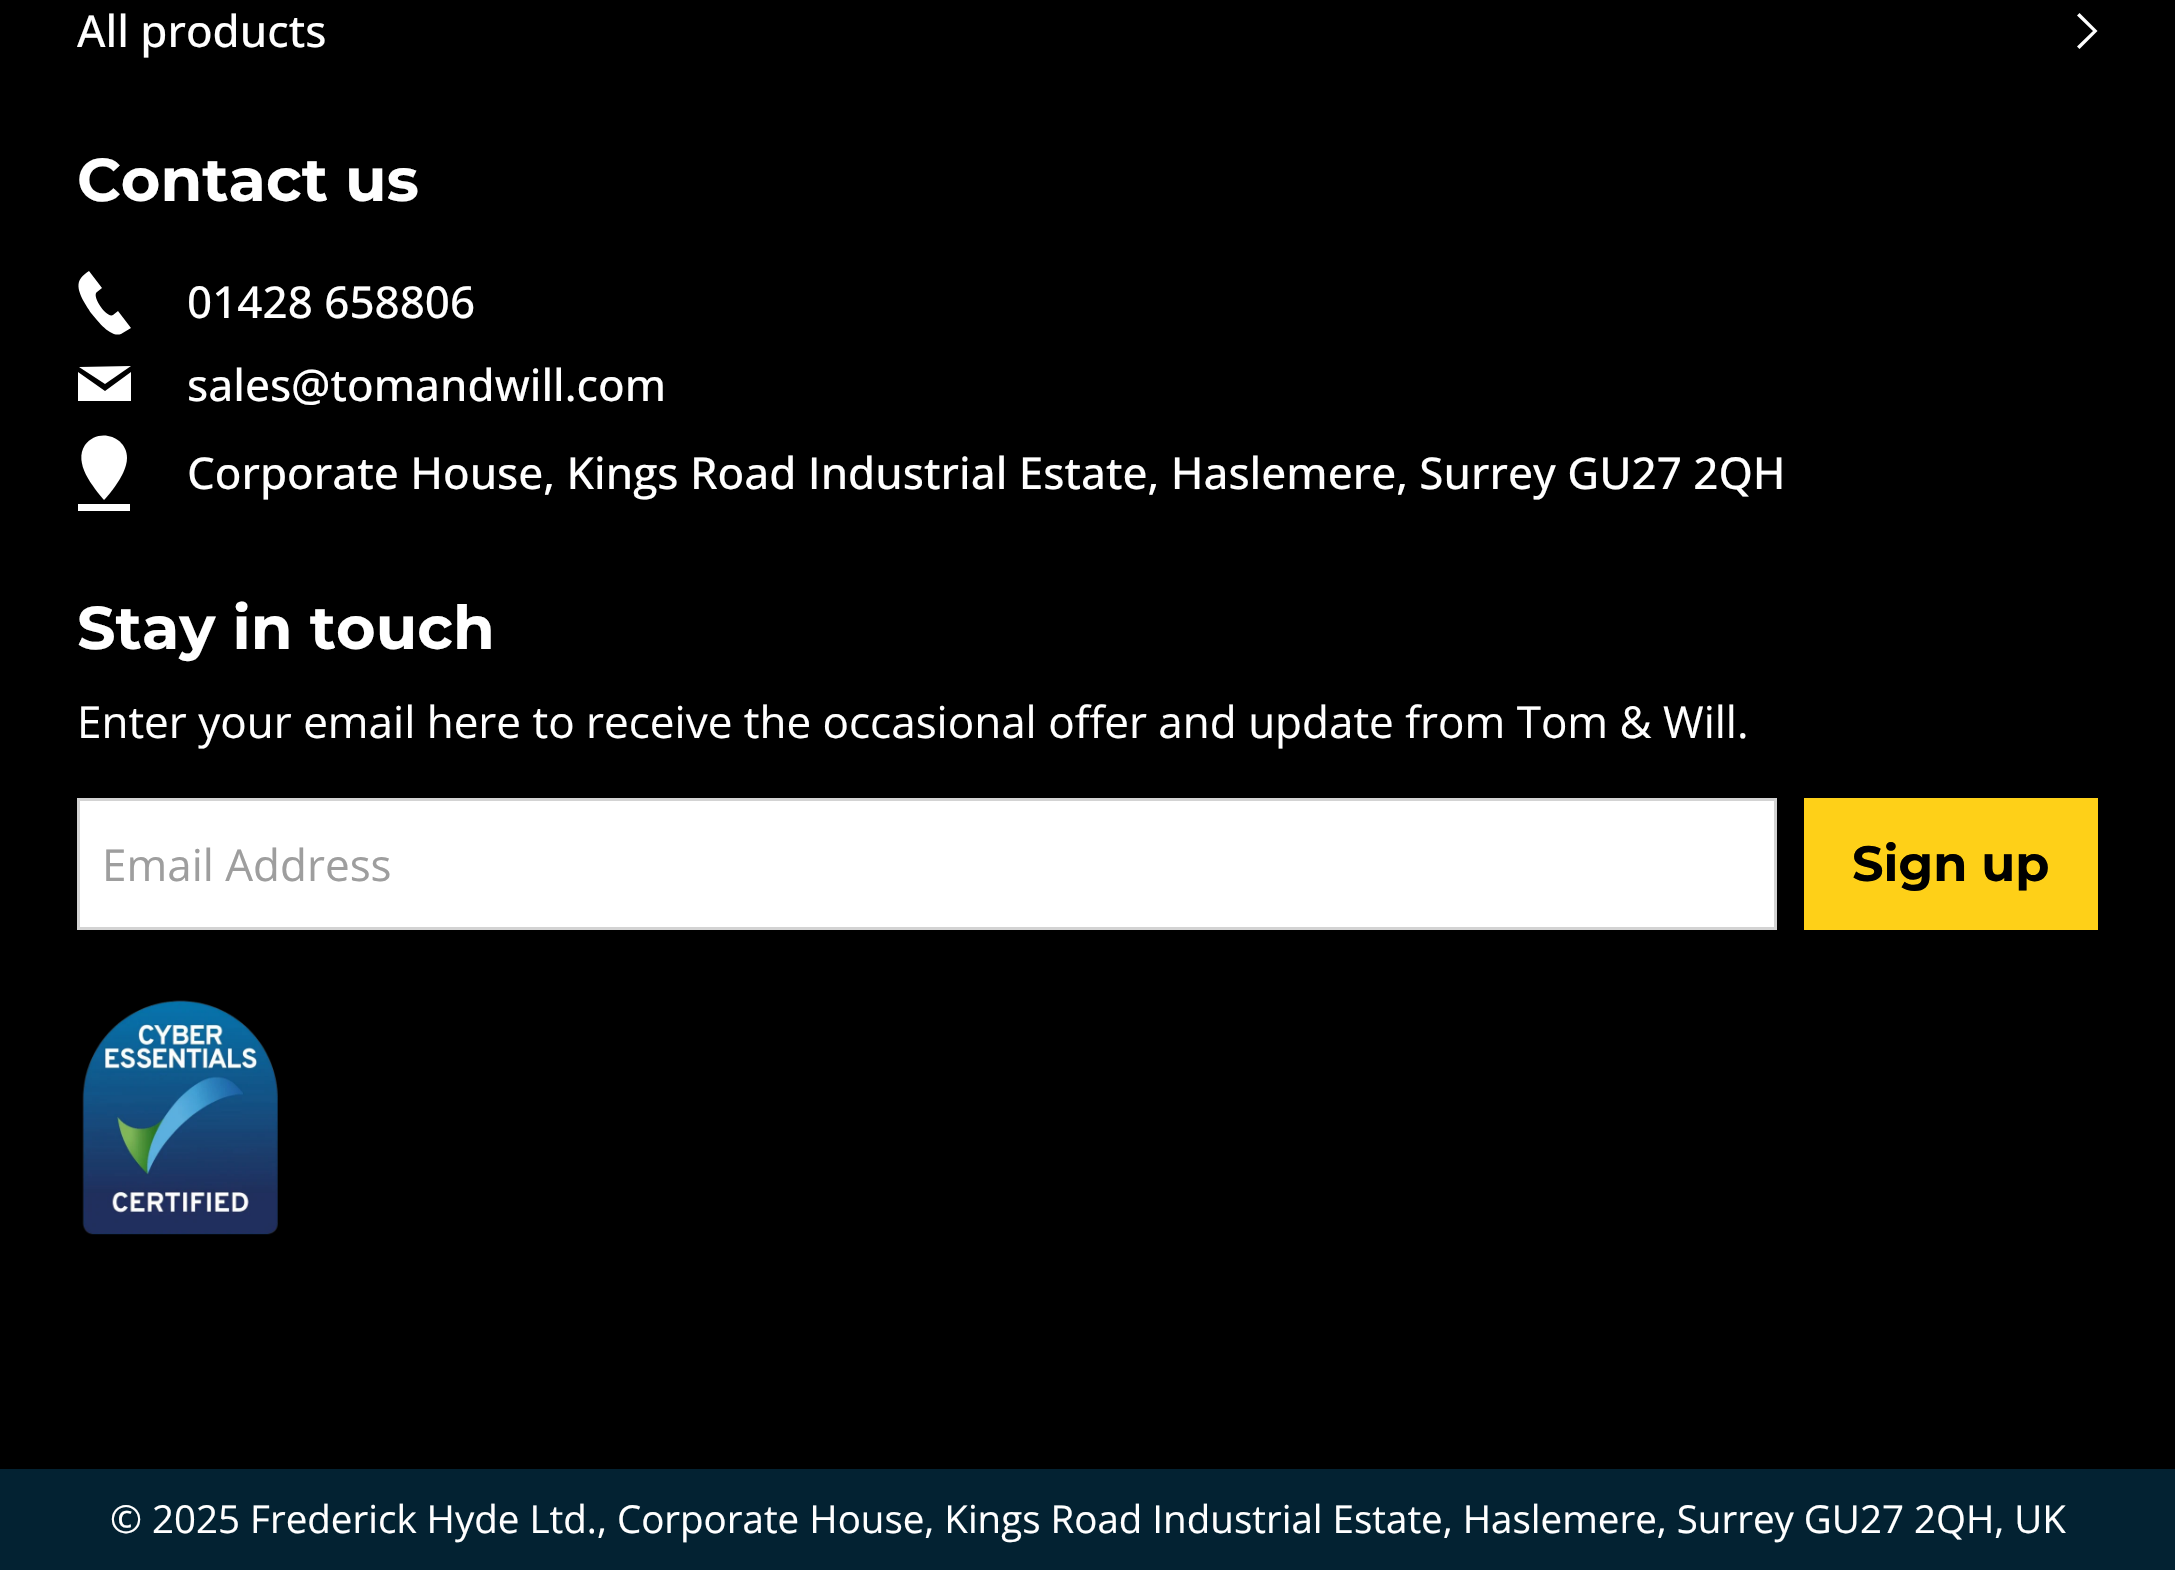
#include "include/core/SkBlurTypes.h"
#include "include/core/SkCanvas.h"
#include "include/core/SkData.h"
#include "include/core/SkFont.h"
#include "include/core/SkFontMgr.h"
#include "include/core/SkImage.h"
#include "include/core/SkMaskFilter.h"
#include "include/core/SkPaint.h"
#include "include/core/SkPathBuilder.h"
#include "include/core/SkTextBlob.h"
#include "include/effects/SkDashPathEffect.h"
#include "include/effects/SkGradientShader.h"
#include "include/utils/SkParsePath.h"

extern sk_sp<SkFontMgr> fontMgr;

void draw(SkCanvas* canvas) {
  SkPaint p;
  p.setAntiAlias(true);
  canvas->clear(SK_ColorBLACK);
  p.setColor(SK_ColorWHITE);
  canvas->drawPath(SkPathBuilder().moveTo(2079.5f, 49).lineTo(2077, 46.5f).lineTo(2093, 31).lineTo(2077, 15.5f).lineTo(2079.5f, 13).lineTo(2097.5f, 31).close().detach(), p);
  canvas->drawPath(SkPathBuilder().moveTo(131, 328).lineTo(118, 311).lineTo(113, 315).cubicTo(107, 319, 91, 296, 97, 292).lineTo(102, 288).lineTo(89, 271).cubicTo(86, 273, 83, 275, 81, 278).cubicTo(73, 288, 86, 305, 91, 313).cubicTo(97, 320, 110, 338, 121, 334).close().detach(), p);
  canvas->drawPath(SkPathBuilder().moveTo(131, 401).lineTo(131, 372).lineTo(105, 391).lineTo(78, 372).lineTo(78, 401).close().detach(), p);
  canvas->drawPath(SkPathBuilder().moveTo(131, 366).lineTo(105, 384).lineTo(79, 367).close().detach(), p);
  canvas->drawPath(SkPathBuilder().moveTo(127, 458).cubicTo(127, 436, 98, 427, 85, 445).cubicTo(73, 463, 93, 487, 104, 500).cubicTo(104, 500, 127, 476, 127, 458).close().detach(), p);
  canvas->drawRect(SkRect::MakeLTRB(78, 504, 130, 511), p);
  canvas->drawRect(SkRect::MakeLTRB(78.5f, 799.5f, 1775.5f, 928.5f), p);
  p.setStyle(SkPaint::kStroke_Style);
  p.setStrokeWidth(3);
  p.setColor(SkColorSetRGB(211, 211, 211));
  canvas->drawRect(SkRect::MakeLTRB(78.5f, 799.5f, 1775.5f, 928.5f), p);
  p.setStyle(SkPaint::kFill_Style);
  p.setColor(SkColorSetRGB(254, 208, 24));
  canvas->drawRect(SkRect::MakeLTRB(1804, 798, 2098, 930), p);
  canvas->drawImageRect(SkImages::DeferredFromEncodedData(SkData::MakeFromFileName("images/1.png")), SkRect::MakeLTRB(82, 1000, 278, 1235), SkSamplingOptions());
  p.setColor(SkColorSetRGB(3, 34, 50));
  canvas->drawRect(SkRect::MakeLTRB(0, 1469, 2175, 1570), p);
  SkFont font1(fontMgr->matchFamilyStyle("Open Sans", SkFontStyle(500, SkFontStyle::kNormal_Width, SkFontStyle::kUpright_Slant)), 44);
  font1.setSubpixel(true);
  p.setColor(SK_ColorWHITE);
  canvas->drawString("All products", 77, 47, font1, p);
  SkFont font2(fontMgr->matchFamilyStyle("Montserrat", SkFontStyle::Bold()), 60.5f);
  font2.setSubpixel(true);
  canvas->drawString("Contact us", 77, 201, font2, p);
  canvas->drawString("01428 658806", 187, 318, font1, p);
  canvas->drawString("sales@tomandwill.com", 187, 401, font1, p);
  canvas->drawString("Corporate House, Kings Road Industrial Estate, Haslemere, Surrey GU27 2QH", 187, 489, font1, p);
  canvas->drawString("Stay in touch", 77, 649, font2, p);
  SkFont font3(fontMgr->matchFamilyStyle("Open Sans", SkFontStyle::Normal()), 44);
  font3.setSubpixel(true);
  canvas->drawString("Enter your email here to receive the occasional offer and update from Tom & Will.", 77, 738, font3, p);
  p.setColor(SkColorSetRGB(158, 158, 158));
  canvas->drawString("Email Address", 102, 881, font3, p);
  SkFont font4(fontMgr->matchFamilyStyle("Montserrat", SkFontStyle::Bold()), 49.5f);
  font4.setSubpixel(true);
  p.setColor(SK_ColorBLACK);
  canvas->drawString("Sign up", 1852, 881, font4, p);
  SkFont font5(fontMgr->matchFamilyStyle("Open Sans", SkFontStyle::Normal()), 38.5f);
  font5.setSubpixel(true);
  p.setColor(SK_ColorWHITE);
  canvas->drawString("© 2025 Frederick Hyde Ltd., Corporate House, Kings Road Industrial Estate, Haslemere, Surrey GU27 2QH, UK", 110, 1533, font5, p);
}
